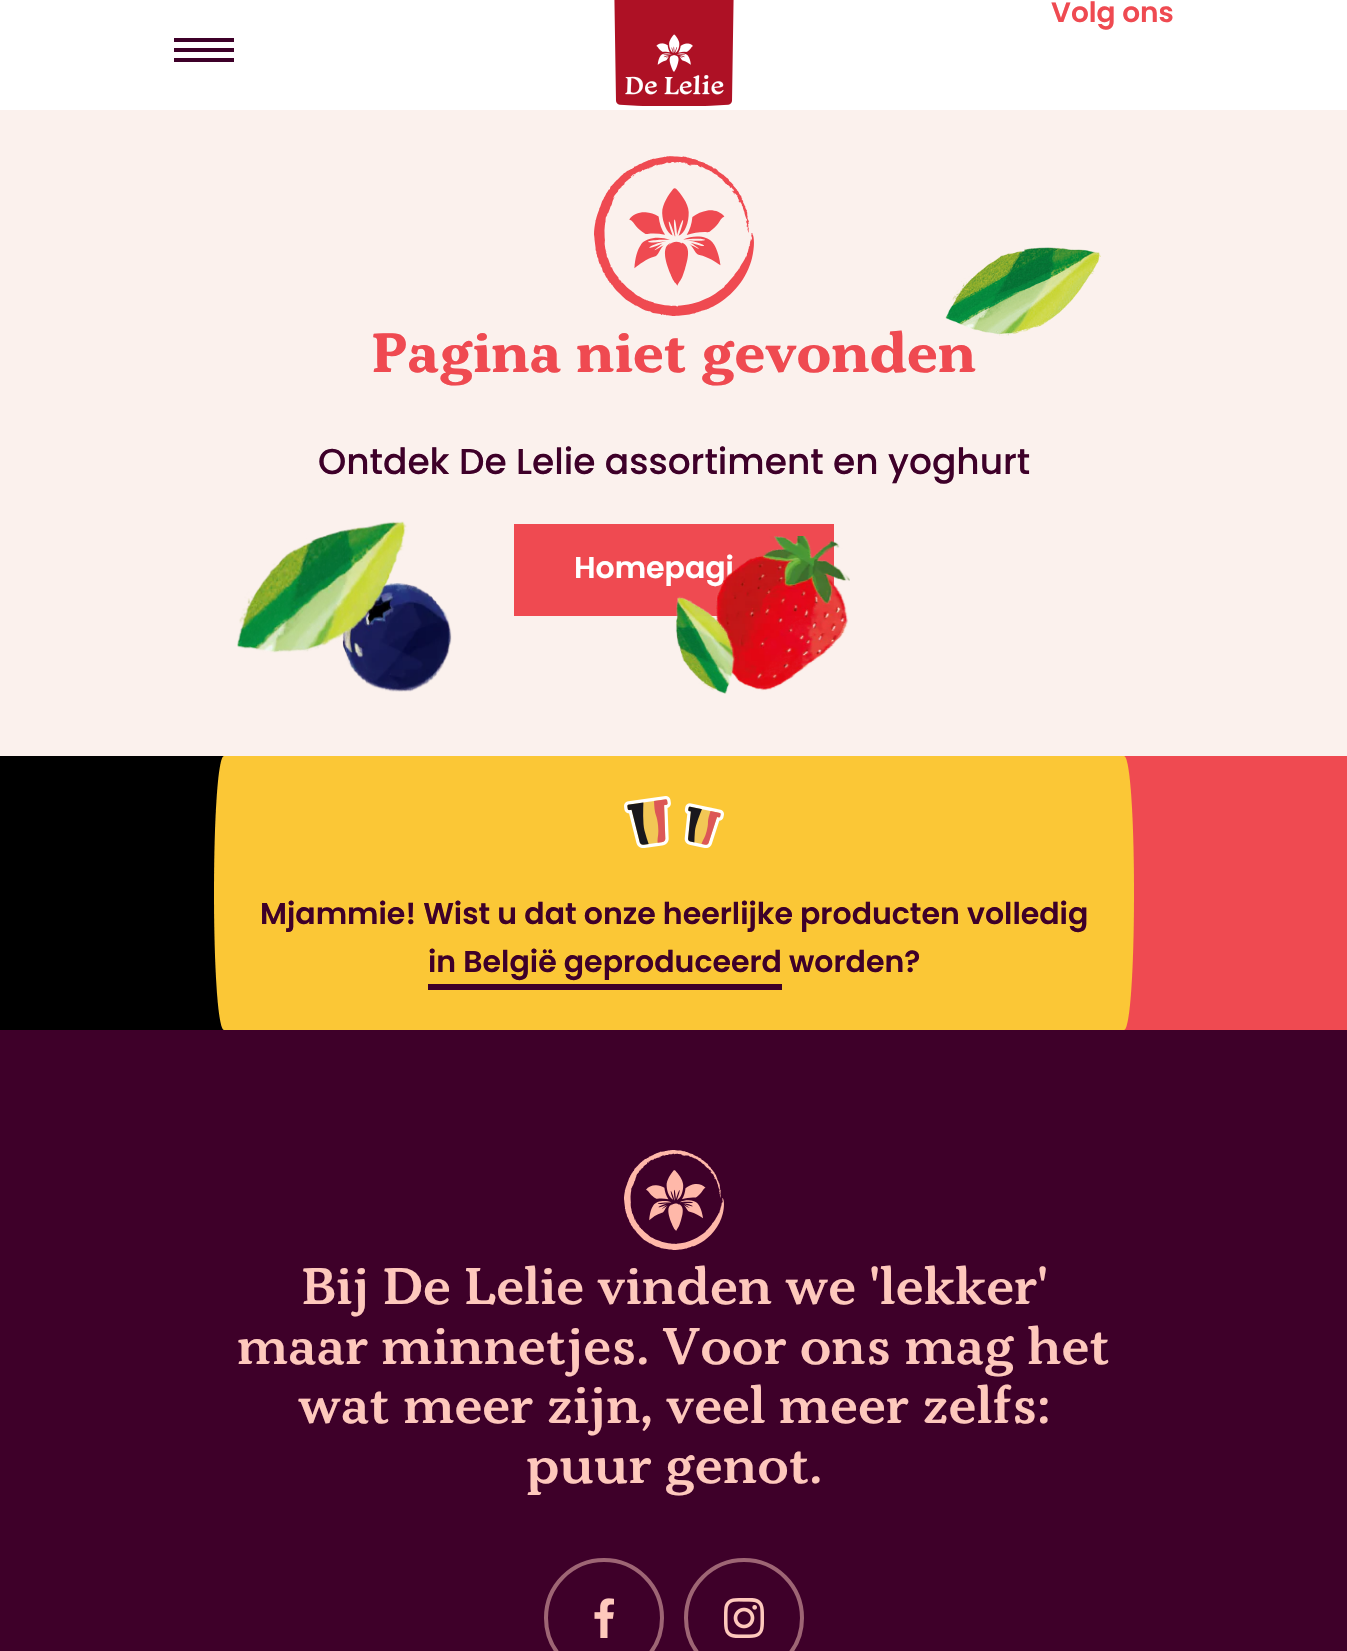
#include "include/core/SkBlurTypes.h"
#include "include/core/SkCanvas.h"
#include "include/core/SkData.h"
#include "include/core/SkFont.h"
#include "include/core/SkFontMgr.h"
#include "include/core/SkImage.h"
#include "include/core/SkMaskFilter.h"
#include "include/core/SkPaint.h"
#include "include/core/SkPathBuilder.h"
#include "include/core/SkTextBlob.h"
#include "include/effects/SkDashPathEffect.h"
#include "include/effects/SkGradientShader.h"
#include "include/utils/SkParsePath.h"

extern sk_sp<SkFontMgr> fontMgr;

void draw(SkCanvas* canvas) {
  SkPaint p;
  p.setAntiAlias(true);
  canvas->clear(SkColorSetRGB(251, 241, 237));
  p.setColor(SK_ColorWHITE);
  canvas->drawRect(SkRect::MakeLTRB(0, 0, 1347, 110), p);
  canvas->drawImageRect(SkImages::DeferredFromEncodedData(SkData::MakeFromFileName("images/1.png")), SkRect::MakeLTRB(614, 0, 734, 106), SkSamplingOptions());
  p.setColor(SkColorSetRGB(62, 0, 41));
  canvas->drawRect(SkRect::MakeLTRB(174, 48, 234, 52), p);
  canvas->drawRect(SkRect::MakeLTRB(174, 38, 234, 42), p);
  canvas->drawRect(SkRect::MakeLTRB(174, 58, 234, 62), p);
  canvas->drawImageRect(SkImages::DeferredFromEncodedData(SkData::MakeFromFileName("images/2.png")), SkRect::MakeLTRB(594, 156, 754, 316), SkSamplingOptions());
  canvas->drawImageRect(SkImages::DeferredFromEncodedData(SkData::MakeFromFileName("images/3.png")), SkRect::MakeLTRB(945, 247, 1101, 336), SkSamplingOptions());
  canvas->drawImageRect(SkImages::DeferredFromEncodedData(SkData::MakeFromFileName("images/4.png")), SkRect::MakeLTRB(237, 521, 452, 692), SkSamplingOptions());
  p.setColor(SkColorSetRGB(239, 74, 81));
  canvas->drawRect(SkRect::MakeLTRB(514, 524, 834, 616), p);
  p.setColor(SK_ColorBLACK);
  canvas->drawRect(SkRect::MakeLTRB(0, 756, 224, 1030), p);
  p.setColor(SkColorSetRGB(239, 74, 81));
  canvas->drawRect(SkRect::MakeLTRB(1124, 756, 1347, 1030), p);
  p.setColor(SkColorSetRGB(251, 199, 54));
  canvas->drawRect(SkRect::MakeLTRB(234, 756, 1114, 1030), p);
  canvas->drawPath(SkPathBuilder().moveTo(224, 756).lineTo(234, 756).lineTo(234, 1030).lineTo(224, 1030).cubicTo(218, 1030, 214, 969, 214, 893).cubicTo(214, 817, 218, 756, 224, 756).close().detach(), p);
  canvas->drawImageRect(SkImages::DeferredFromEncodedData(SkData::MakeFromFileName("images/6.png")), SkRect::MakeLTRB(624, 796, 724, 848), SkSamplingOptions());
  canvas->drawPath(SkPathBuilder().moveTo(1114, 756).lineTo(1124, 756).cubicTo(1130, 756, 1134, 817, 1134, 893).cubicTo(1134, 969, 1130, 1030, 1124, 1030).lineTo(1114, 1030).close().detach(), p);
  p.setColor(SkColorSetRGB(62, 0, 41));
  canvas->drawRect(SkRect::MakeLTRB(428, 984, 782, 990), p);
  canvas->drawRect(SkRect::MakeLTRB(0, 1030, 1347, 1651), p);
  canvas->drawImageRect(SkImages::DeferredFromEncodedData(SkData::MakeFromFileName("images/7.png")), SkRect::MakeLTRB(624, 1150, 724, 1250), SkSamplingOptions());
  p.setStyle(SkPaint::kStroke_Style);
  p.setStrokeWidth(4);
  p.setColor(SkColorSetRGB(158, 101, 116));
  canvas->drawCircle(604, 1618, 58, p);
  canvas->drawImageRect(SkImages::DeferredFromEncodedData(SkData::MakeFromFileName("images/8.png")), SkRect::MakeLTRB(594, 1598, 614, 1638), SkSamplingOptions());
  canvas->drawCircle(744, 1618, 58, p);
  canvas->drawImageRect(SkImages::DeferredFromEncodedData(SkData::MakeFromFileName("images/9.png")), SkRect::MakeLTRB(724, 1598, 764, 1638), SkSamplingOptions());
  SkFont font1(fontMgr->matchFamilyStyle("Poppins", SkFontStyle(600, SkFontStyle::kNormal_Width, SkFontStyle::kUpright_Slant)), 28);
  font1.setSubpixel(true);
  p.setStyle(SkPaint::kFill_Style);
  p.setColor(SkColorSetRGB(239, 74, 81));
  canvas->drawString("Volg ons", 1051, 22, font1, p);
  SkFont font2(fontMgr->matchFamilyStyle("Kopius", SkFontStyle::Bold()), 56);
  font2.setSubpixel(true);
  canvas->drawString("Pagina niet gevonden", 371, 372, font2, p);
  SkFont font3(fontMgr->matchFamilyStyle("Poppins", SkFontStyle(500, SkFontStyle::kNormal_Width, SkFontStyle::kUpright_Slant)), 36);
  font3.setSubpixel(true);
  p.setColor(SkColorSetRGB(62, 0, 41));
  canvas->drawString("Ontdek De Lelie assortiment en yoghurt", 318, 474, font3, p);
  SkFont font4(fontMgr->matchFamilyStyle("Poppins", SkFontStyle(600, SkFontStyle::kNormal_Width, SkFontStyle::kUpright_Slant)), 30);
  font4.setSubpixel(true);
  p.setColor(SK_ColorWHITE);
  canvas->drawString("Homepagi", 574, 578, font4, p);
  canvas->drawImageRect(SkImages::DeferredFromEncodedData(SkData::MakeFromFileName("images/5.png")), SkRect::MakeLTRB(675, 536, 850, 694), SkSamplingOptions());
  p.setColor(SkColorSetRGB(62, 0, 41));
  canvas->drawString("Mjammie! Wist u dat onze heerlijke producten volledig", 260, 924, font4, p);
  canvas->drawString("in België geproduceerd", 428, 972, font4, p);
  canvas->drawString("worden?", 789, 972, font4, p);
  SkFont font5(fontMgr->matchFamilyStyle("Kopius", SkFontStyle(600, SkFontStyle::kNormal_Width, SkFontStyle::kUpright_Slant)), 52);
  font5.setSubpixel(true);
  p.setColor(SkColorSetRGB(254, 200, 188));
  canvas->drawString("Bij De Lelie vinden we 'lekker'", 301, 1304, font5, p);
  canvas->drawString("maar minnetjes. Voor ons mag het", 237, 1364, font5, p);
  canvas->drawString("wat meer zijn, veel meer zelfs:", 298, 1423, font5, p);
  canvas->drawString("puur genot.", 525, 1483, font5, p);
}
